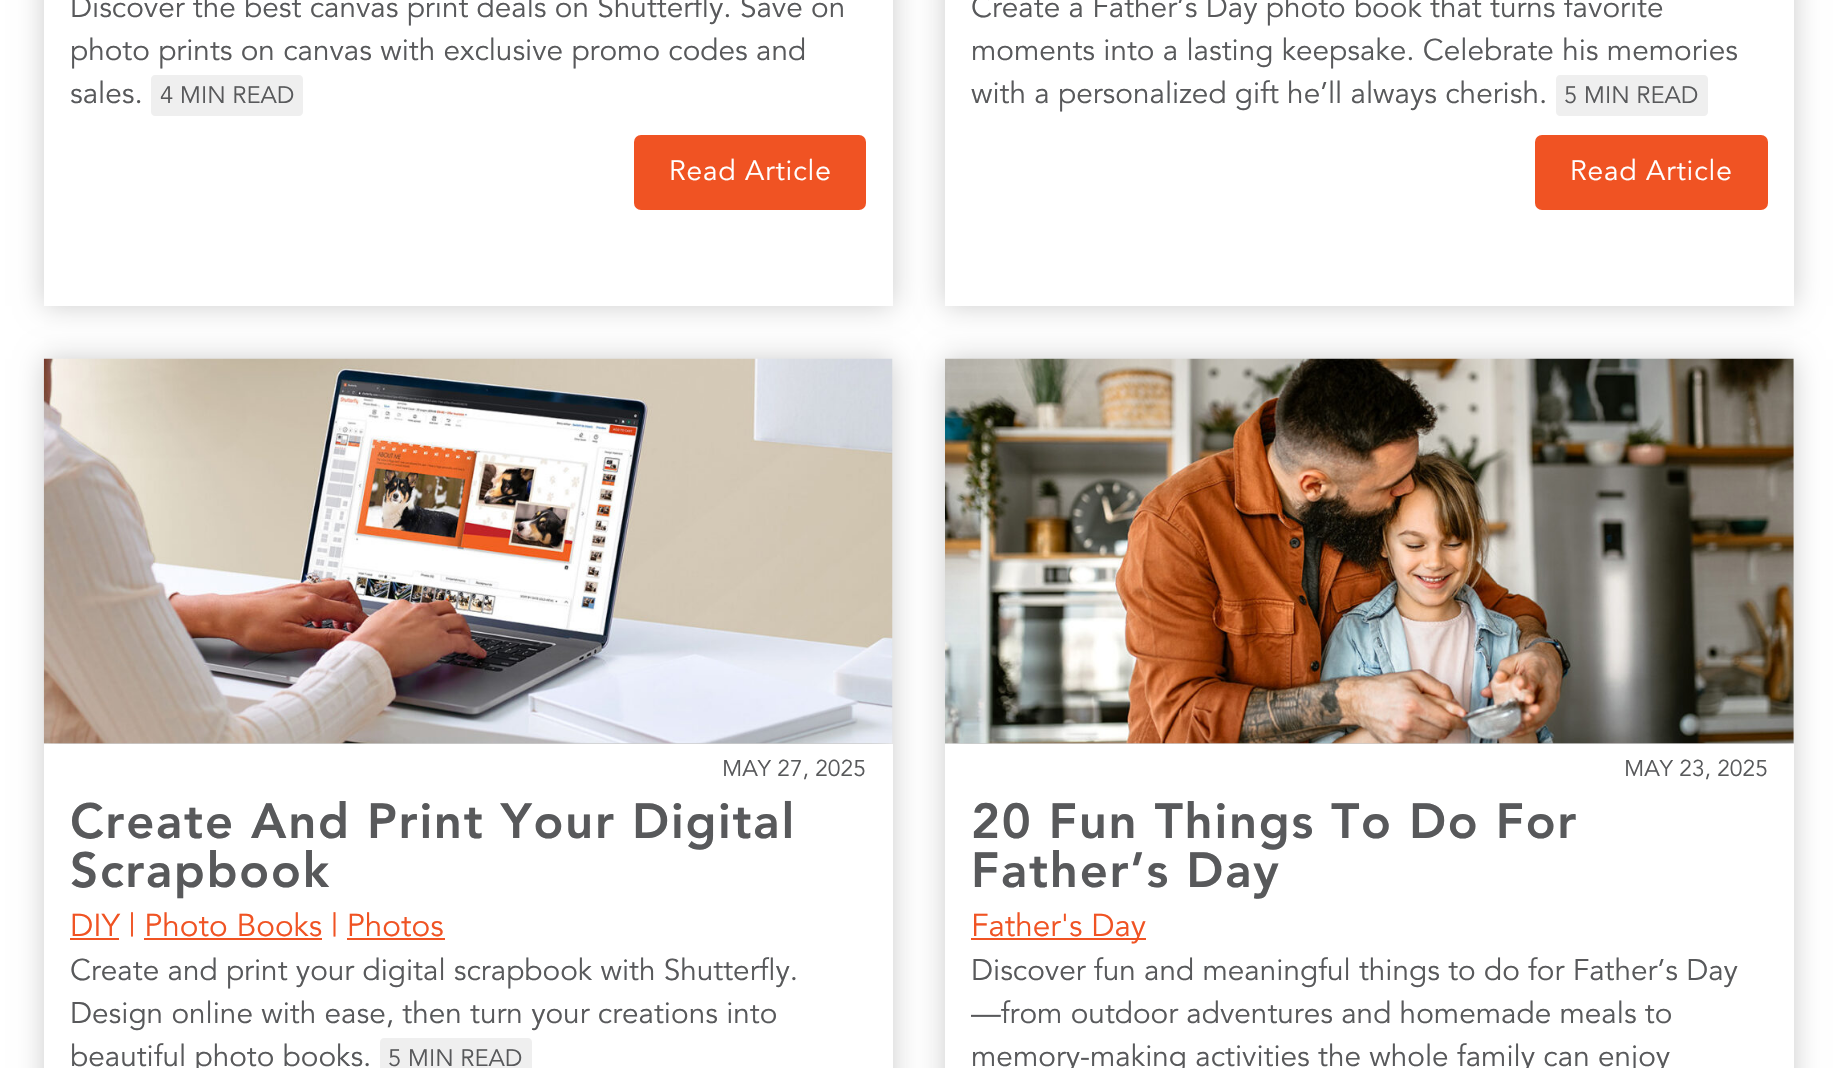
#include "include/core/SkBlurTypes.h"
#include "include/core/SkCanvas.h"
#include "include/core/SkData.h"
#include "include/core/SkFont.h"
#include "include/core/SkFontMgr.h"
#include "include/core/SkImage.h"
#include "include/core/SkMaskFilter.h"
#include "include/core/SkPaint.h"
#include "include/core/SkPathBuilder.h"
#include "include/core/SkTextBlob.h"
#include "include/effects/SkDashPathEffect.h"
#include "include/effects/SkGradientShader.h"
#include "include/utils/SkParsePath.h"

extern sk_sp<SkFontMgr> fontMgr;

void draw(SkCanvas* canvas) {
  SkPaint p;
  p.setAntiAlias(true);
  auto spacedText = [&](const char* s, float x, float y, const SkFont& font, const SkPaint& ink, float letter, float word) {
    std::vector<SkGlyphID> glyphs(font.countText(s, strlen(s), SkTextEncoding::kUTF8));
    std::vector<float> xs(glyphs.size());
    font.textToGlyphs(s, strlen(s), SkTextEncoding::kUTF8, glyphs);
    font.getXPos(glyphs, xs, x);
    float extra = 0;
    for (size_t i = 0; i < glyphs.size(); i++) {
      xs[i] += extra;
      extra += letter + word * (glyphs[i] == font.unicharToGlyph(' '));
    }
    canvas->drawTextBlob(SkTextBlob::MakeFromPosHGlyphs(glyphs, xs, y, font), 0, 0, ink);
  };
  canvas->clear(SK_ColorWHITE);
  p.setColor(SkColorSetRGB(204, 204, 204));
  p.setMaskFilter(SkMaskFilter::MakeBlur(kNormal_SkBlurStyle, 13));
  canvas->drawRect(SkRect::MakeLTRB(44, -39, 893, 306), p);
  p.setMaskFilter(nullptr);
  p.setColor(SK_ColorWHITE);
  canvas->drawRect(SkRect::MakeLTRB(44, 0, 893, 306), p);
  p.setColor(SkColorSetRGB(239, 239, 239));
  canvas->drawPath(SkPathBuilder().moveTo(155, 75).lineTo(159, 75).lineTo(159, 116).lineTo(155, 116).cubicTo(153, 116, 151, 114, 151, 112).lineTo(151, 79).cubicTo(151, 77, 153, 75, 155, 75).close().detach(), p);
  canvas->drawRect(SkRect::MakeLTRB(159, 75, 180, 116), p);
  canvas->drawPath(SkPathBuilder().moveTo(180, 75).lineTo(299, 75).cubicTo(301, 75, 303, 77, 303, 79).lineTo(303, 112).cubicTo(303, 114, 301, 116, 299, 116).lineTo(180, 116).close().detach(), p);
  p.setColor(SkColorSetRGB(240, 83, 35));
  canvas->drawRoundRect(SkRect::MakeLTRB(634, 135, 866, 210), 7, 7, p);
  p.setColor(SkColorSetRGB(204, 204, 204));
  p.setMaskFilter(SkMaskFilter::MakeBlur(kNormal_SkBlurStyle, 13));
  canvas->drawRect(SkRect::MakeLTRB(945, -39, 1794, 306), p);
  p.setMaskFilter(nullptr);
  p.setColor(SK_ColorWHITE);
  canvas->drawRect(SkRect::MakeLTRB(945, 0, 1794, 306), p);
  p.setColor(SkColorSetRGB(239, 239, 239));
  canvas->drawPath(SkPathBuilder().moveTo(1560, 75).lineTo(1565, 75).lineTo(1565, 116).lineTo(1560, 116).cubicTo(1558, 116, 1556, 114, 1556, 112).lineTo(1556, 79).cubicTo(1556, 77, 1558, 75, 1560, 75).close().detach(), p);
  canvas->drawRect(SkRect::MakeLTRB(1565, 75, 1584, 116), p);
  canvas->drawPath(SkPathBuilder().moveTo(1584, 75).lineTo(1704, 75).cubicTo(1706, 75, 1708, 77, 1708, 79).lineTo(1708, 112).cubicTo(1708, 114, 1706, 116, 1704, 116).lineTo(1584, 116).close().detach(), p);
  p.setColor(SkColorSetRGB(240, 83, 35));
  canvas->drawRoundRect(SkRect::MakeLTRB(1535, 135, 1768, 210), 7, 7, p);
  p.setColor(SkColorSetRGB(204, 204, 204));
  p.setMaskFilter(SkMaskFilter::MakeBlur(kNormal_SkBlurStyle, 13));
  canvas->drawRect(SkRect::MakeLTRB(44, 359, 893, 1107), p);
  p.setMaskFilter(nullptr);
  canvas->drawImageRect(SkImages::DeferredFromEncodedData(SkData::MakeFromFileName("images/1.png")), SkRect::MakeLTRB(43, 358, 893, 744), SkSamplingOptions());
  p.setColor(SK_ColorWHITE);
  canvas->drawRect(SkRect::MakeLTRB(44, 744, 893, 1068), p);
  p.setColor(SkColorSetRGB(240, 83, 35));
  canvas->drawRect(SkRect::MakeLTRB(70, 938, 119, 940), p);
  canvas->drawRect(SkRect::MakeLTRB(144, 938, 322, 940), p);
  canvas->drawRect(SkRect::MakeLTRB(347, 938, 445, 940), p);
  p.setColor(SkColorSetRGB(239, 239, 239));
  canvas->drawPath(SkPathBuilder().moveTo(384, 1038).lineTo(389, 1038).lineTo(389, 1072).lineTo(384, 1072).cubicTo(382, 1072, 380, 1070, 380, 1068).lineTo(380, 1042).cubicTo(380, 1040, 382, 1038, 384, 1038).close().detach(), p);
  canvas->drawRect(SkRect::MakeLTRB(389, 1038, 408, 1068), p);
  canvas->drawPath(SkPathBuilder().moveTo(408, 1038).lineTo(528, 1038).cubicTo(530, 1038, 532, 1040, 532, 1042).lineTo(532, 1068).cubicTo(532, 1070, 530, 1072, 528, 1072).lineTo(408, 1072).close().detach(), p);
  p.setColor(SkColorSetRGB(204, 204, 204));
  p.setMaskFilter(SkMaskFilter::MakeBlur(kNormal_SkBlurStyle, 13));
  canvas->drawRect(SkRect::MakeLTRB(945, 359, 1794, 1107), p);
  p.setMaskFilter(nullptr);
  canvas->drawImageRect(SkImages::DeferredFromEncodedData(SkData::MakeFromFileName("images/2.png")), SkRect::MakeLTRB(945, 358, 1794, 744), SkSamplingOptions());
  p.setColor(SK_ColorWHITE);
  canvas->drawRect(SkRect::MakeLTRB(945, 744, 1794, 1068), p);
  p.setColor(SkColorSetRGB(240, 83, 35));
  canvas->drawRect(SkRect::MakeLTRB(971, 938, 1146, 940), p);
  SkFont font1(fontMgr->matchFamilyStyle("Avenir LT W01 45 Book", SkFontStyle::Normal()), 29.75f);
  font1.setSubpixel(true);
  p.setColor(SkColorSetRGB(88, 89, 91));
  canvas->drawString("Discover the best canvas print deals on Shutterfly. Save on", 70, 17, font1, p);
  canvas->drawString("photo prints on canvas with exclusive promo codes and", 70, 60, font1, p);
  canvas->drawString("sales.", 70, 103, font1, p);
  SkFont font2(fontMgr->matchFamilyStyle("Avenir LT W01 45 Book", SkFontStyle::Normal()), 23.75f);
  font2.setSubpixel(true);
  canvas->drawString("4 MIN READ", 160, 103, font2, p);
  SkFont font3(fontMgr->matchFamilyStyle("Avenir LT W01 45 Book", SkFontStyle::Normal()), 28);
  font3.setSubpixel(true);
  p.setColor(SK_ColorWHITE);
  spacedText("Read Article", 669, 180, font3, p, 0.9f, 0);
  p.setColor(SkColorSetRGB(88, 89, 91));
  canvas->drawString("Create a Father’s Day photo book that turns favorite", 971, 17, font1, p);
  canvas->drawString("moments into a lasting keepsake. Celebrate his memories", 971, 60, font1, p);
  canvas->drawString("with a personalized gift he’ll always cherish.", 971, 103, font1, p);
  canvas->drawString("5 MIN READ", 1564, 103, font2, p);
  p.setColor(SK_ColorWHITE);
  spacedText("Read Article", 1570, 180, font3, p, 0.9f, 0);
  SkFont font4(fontMgr->matchFamilyStyle("Avenir LT W01 45 Book", SkFontStyle::Normal()), 22.75f);
  font4.setSubpixel(true);
  p.setColor(SkColorSetRGB(88, 89, 91));
  canvas->drawString("MAY 27, 2025", 722, 776, font4, p);
  SkFont font5(fontMgr->matchFamilyStyle("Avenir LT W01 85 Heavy", SkFontStyle(900, SkFontStyle::kNormal_Width, SkFontStyle::kUpright_Slant)), 49);
  font5.setSubpixel(true);
  spacedText("Create And Print Your Digital", 70, 838, font5, p, 1.75f, 0);
  spacedText("Scrapbook", 70, 887, font5, p, 1.75f, 0);
  SkFont font6(fontMgr->matchFamilyStyle("Avenir LT W01 45 Book", SkFontStyle::Normal()), 31.5f);
  font6.setSubpixel(true);
  p.setColor(SkColorSetRGB(240, 83, 35));
  canvas->drawString("DIY | Photo Books | Photos", 70, 936, font6, p);
  p.setColor(SkColorSetRGB(88, 89, 91));
  canvas->drawString("Create and print your digital scrapbook with Shutterfly.", 70, 980, font1, p);
  canvas->drawString("Design online with ease, then turn your creations into", 70, 1023, font1, p);
  canvas->drawString("beautiful photo books.", 70, 1066, font1, p);
  canvas->drawString("5 MIN READ", 388, 1066, font2, p);
  canvas->drawString("MAY 23, 2025", 1624, 776, font4, p);
  spacedText("20 Fun Things To Do For", 971, 838, font5, p, 1.75f, 0);
  spacedText("Father’s Day", 971, 887, font5, p, 1.75f, 0);
  p.setColor(SkColorSetRGB(240, 83, 35));
  canvas->drawString("Father's Day", 971, 936, font6, p);
  p.setColor(SkColorSetRGB(88, 89, 91));
  canvas->drawString("Discover fun and meaningful things to do for Father’s Day", 971, 980, font1, p);
  canvas->drawString("—from outdoor adventures and homemade meals to", 971, 1023, font1, p);
  canvas->drawString("memory-making activities the whole family can enjoy", 971, 1066, font1, p);
}
